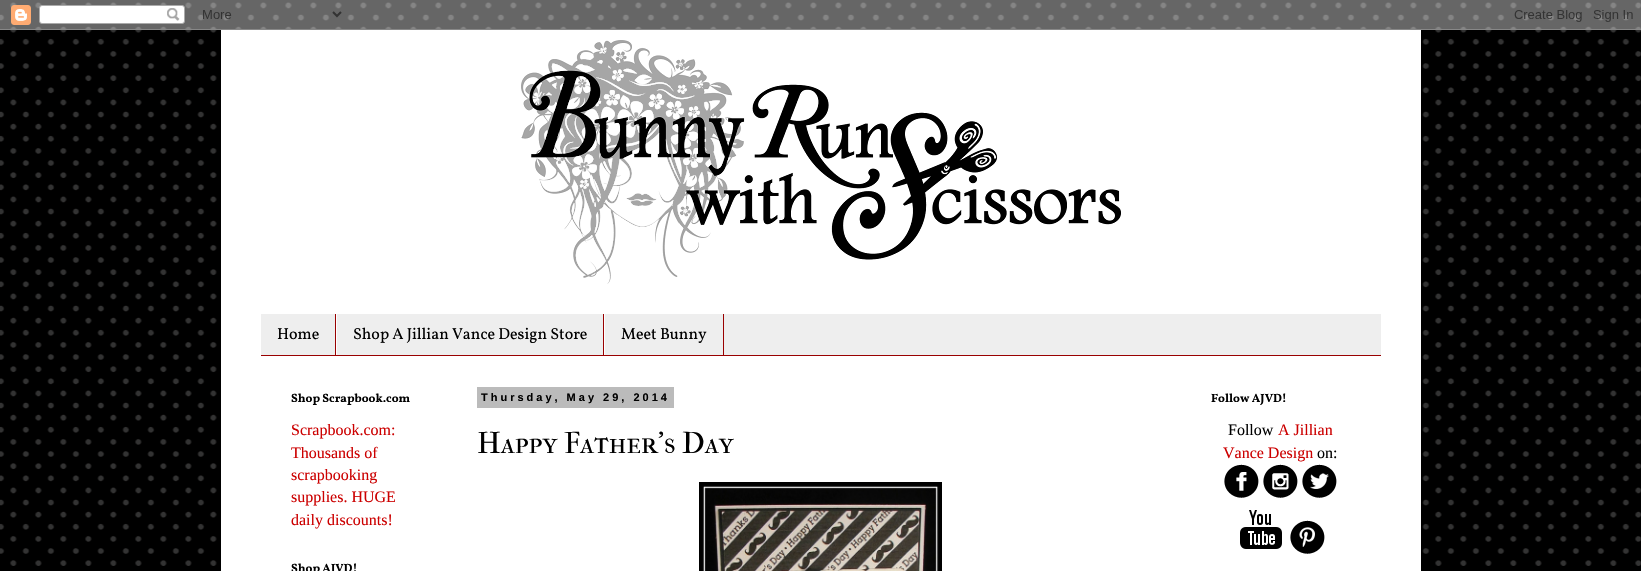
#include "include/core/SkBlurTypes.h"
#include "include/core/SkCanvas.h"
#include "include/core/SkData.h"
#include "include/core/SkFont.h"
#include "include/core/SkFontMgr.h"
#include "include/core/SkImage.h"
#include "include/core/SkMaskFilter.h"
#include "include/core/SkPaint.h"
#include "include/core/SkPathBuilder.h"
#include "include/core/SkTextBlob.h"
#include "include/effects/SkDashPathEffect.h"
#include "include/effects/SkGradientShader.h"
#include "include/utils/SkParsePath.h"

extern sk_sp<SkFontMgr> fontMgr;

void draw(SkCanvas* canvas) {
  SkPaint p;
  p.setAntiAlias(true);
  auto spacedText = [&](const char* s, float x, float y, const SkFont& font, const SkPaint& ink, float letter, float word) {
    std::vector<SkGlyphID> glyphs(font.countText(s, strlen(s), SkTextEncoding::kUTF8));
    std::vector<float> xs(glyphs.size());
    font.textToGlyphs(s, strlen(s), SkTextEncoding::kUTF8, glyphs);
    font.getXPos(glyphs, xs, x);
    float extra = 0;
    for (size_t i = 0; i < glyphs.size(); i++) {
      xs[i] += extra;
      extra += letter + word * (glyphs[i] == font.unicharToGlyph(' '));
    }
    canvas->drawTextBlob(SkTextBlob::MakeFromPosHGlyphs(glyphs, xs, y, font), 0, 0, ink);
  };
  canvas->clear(SK_ColorBLACK);
  canvas->drawImageRect(SkImages::DeferredFromEncodedData(SkData::MakeFromFileName("images/1.png")), SkRect::MakeLTRB(0, 2, 1641, 566), SkSamplingOptions());
  canvas->drawImageRect(SkImages::DeferredFromEncodedData(SkData::MakeFromFileName("images/2.png")), SkRect::MakeLTRB(0, 0, 1641, 30), SkSamplingOptions());
  p.setColor(SK_ColorWHITE);
  canvas->drawRect(SkRect::MakeLTRB(221, 30, 1421, 571), p);
  canvas->drawImageRect(SkImages::DeferredFromEncodedData(SkData::MakeFromFileName("images/3.png")), SkRect::MakeLTRB(521, 40, 1121, 284), SkSamplingOptions());
  p.setColor(SkColorSetRGB(238, 238, 238));
  canvas->drawRect(SkRect::MakeLTRB(261, 314, 1381, 355), p);
  p.setColor(SkColorSetRGB(153, 0, 0));
  canvas->drawRect(SkRect::MakeLTRB(261, 355, 1381, 356), p);
  canvas->drawRect(SkRect::MakeLTRB(335, 314, 336, 355), p);
  canvas->drawRect(SkRect::MakeLTRB(603, 314, 604, 355), p);
  p.setColor(SK_ColorWHITE);
  canvas->drawRect(SkRect::MakeLTRB(336, 314, 337, 355), p);
  p.setColor(SkColorSetRGB(153, 0, 0));
  canvas->drawRect(SkRect::MakeLTRB(723, 314, 724, 355), p);
  p.setColor(SK_ColorWHITE);
  canvas->drawRect(SkRect::MakeLTRB(604, 314, 605, 355), p);
  p.setColor(SkColorSetRGB(187, 187, 187));
  canvas->drawRect(SkRect::MakeLTRB(477, 387, 674, 408), p);
  canvas->drawImageRect(SkImages::DeferredFromEncodedData(SkData::MakeFromFileName("images/4.png")), SkRect::MakeLTRB(699, 482, 942, 571), SkSamplingOptions());
  canvas->drawImageRect(SkImages::DeferredFromEncodedData(SkData::MakeFromFileName("images/5.png")), SkRect::MakeLTRB(1224, 464, 1259, 498), SkSamplingOptions());
  canvas->drawImageRect(SkImages::DeferredFromEncodedData(SkData::MakeFromFileName("images/6.png")), SkRect::MakeLTRB(1263, 464, 1298, 498), SkSamplingOptions());
  canvas->drawImageRect(SkImages::DeferredFromEncodedData(SkData::MakeFromFileName("images/7.png")), SkRect::MakeLTRB(1302, 464, 1337, 498), SkSamplingOptions());
  canvas->drawImageRect(SkImages::DeferredFromEncodedData(SkData::MakeFromFileName("images/8.png")), SkRect::MakeLTRB(1240, 510, 1282, 549), SkSamplingOptions());
  canvas->drawImageRect(SkImages::DeferredFromEncodedData(SkData::MakeFromFileName("images/9.png")), SkRect::MakeLTRB(1290, 520, 1325, 554), SkSamplingOptions());
  SkFont font1(fontMgr->matchFamilyStyle("Vollkorn", SkFontStyle::Normal()), 16);
  font1.setSubpixel(true);
  p.setColor(SK_ColorBLACK);
  canvas->drawString("Home", 277, 339, font1, p);
  canvas->drawString("Shop A Jillian Vance Design Store", 353, 339, font1, p);
  canvas->drawString("Meet Bunny", 621, 339, font1, p);
  SkFont font2(fontMgr->matchFamilyStyle("Vollkorn", SkFontStyle::Bold()), 12);
  font2.setSubpixel(true);
  canvas->drawString("Shop Scrapbook.com", 291, 402, font2, p);
  SkFont font3(fontMgr->matchFamilyStyle("Liberation Serif", SkFontStyle::Normal()), 16);
  font3.setSubpixel(true);
  p.setColor(SkColorSetRGB(204, 0, 0));
  canvas->drawString("Scrapbook.com:", 291, 435, font3, p);
  canvas->drawString("Thousands of", 291, 458, font3, p);
  canvas->drawString("scrapbooking", 291, 480, font3, p);
  canvas->drawString("supplies. HUGE", 291, 502, font3, p);
  canvas->drawString("daily discounts!", 291, 525, font3, p);
  p.setColor(SK_ColorBLACK);
  canvas->drawString("Shop AJVD!", 291, 572, font2, p);
  SkFont font4(fontMgr->matchFamilyStyle("Liberation Sans", SkFontStyle::Bold()), 11);
  font4.setSubpixel(true);
  spacedText("Thursday, May 29, 2014", 481, 401, font4, p, 3, 0);
  SkFont font5(fontMgr->matchFamilyStyle("IM FELL French Canon SC", SkFontStyle::Normal()), 30);
  font5.setSubpixel(true);
  canvas->drawString("Happy Father's Day", 477, 453, font5, p);
  canvas->drawString("Follow AJVD!", 1211, 402, font2, p);
  canvas->drawString("Follow", 1228, 435, font3, p);
  p.setColor(SkColorSetRGB(204, 0, 0));
  canvas->drawString("A Jillian", 1278, 435, font3, p);
  canvas->drawString("Vance Design", 1223, 458, font3, p);
  p.setColor(SK_ColorBLACK);
  canvas->drawString("on:", 1317, 458, font3, p);
}
